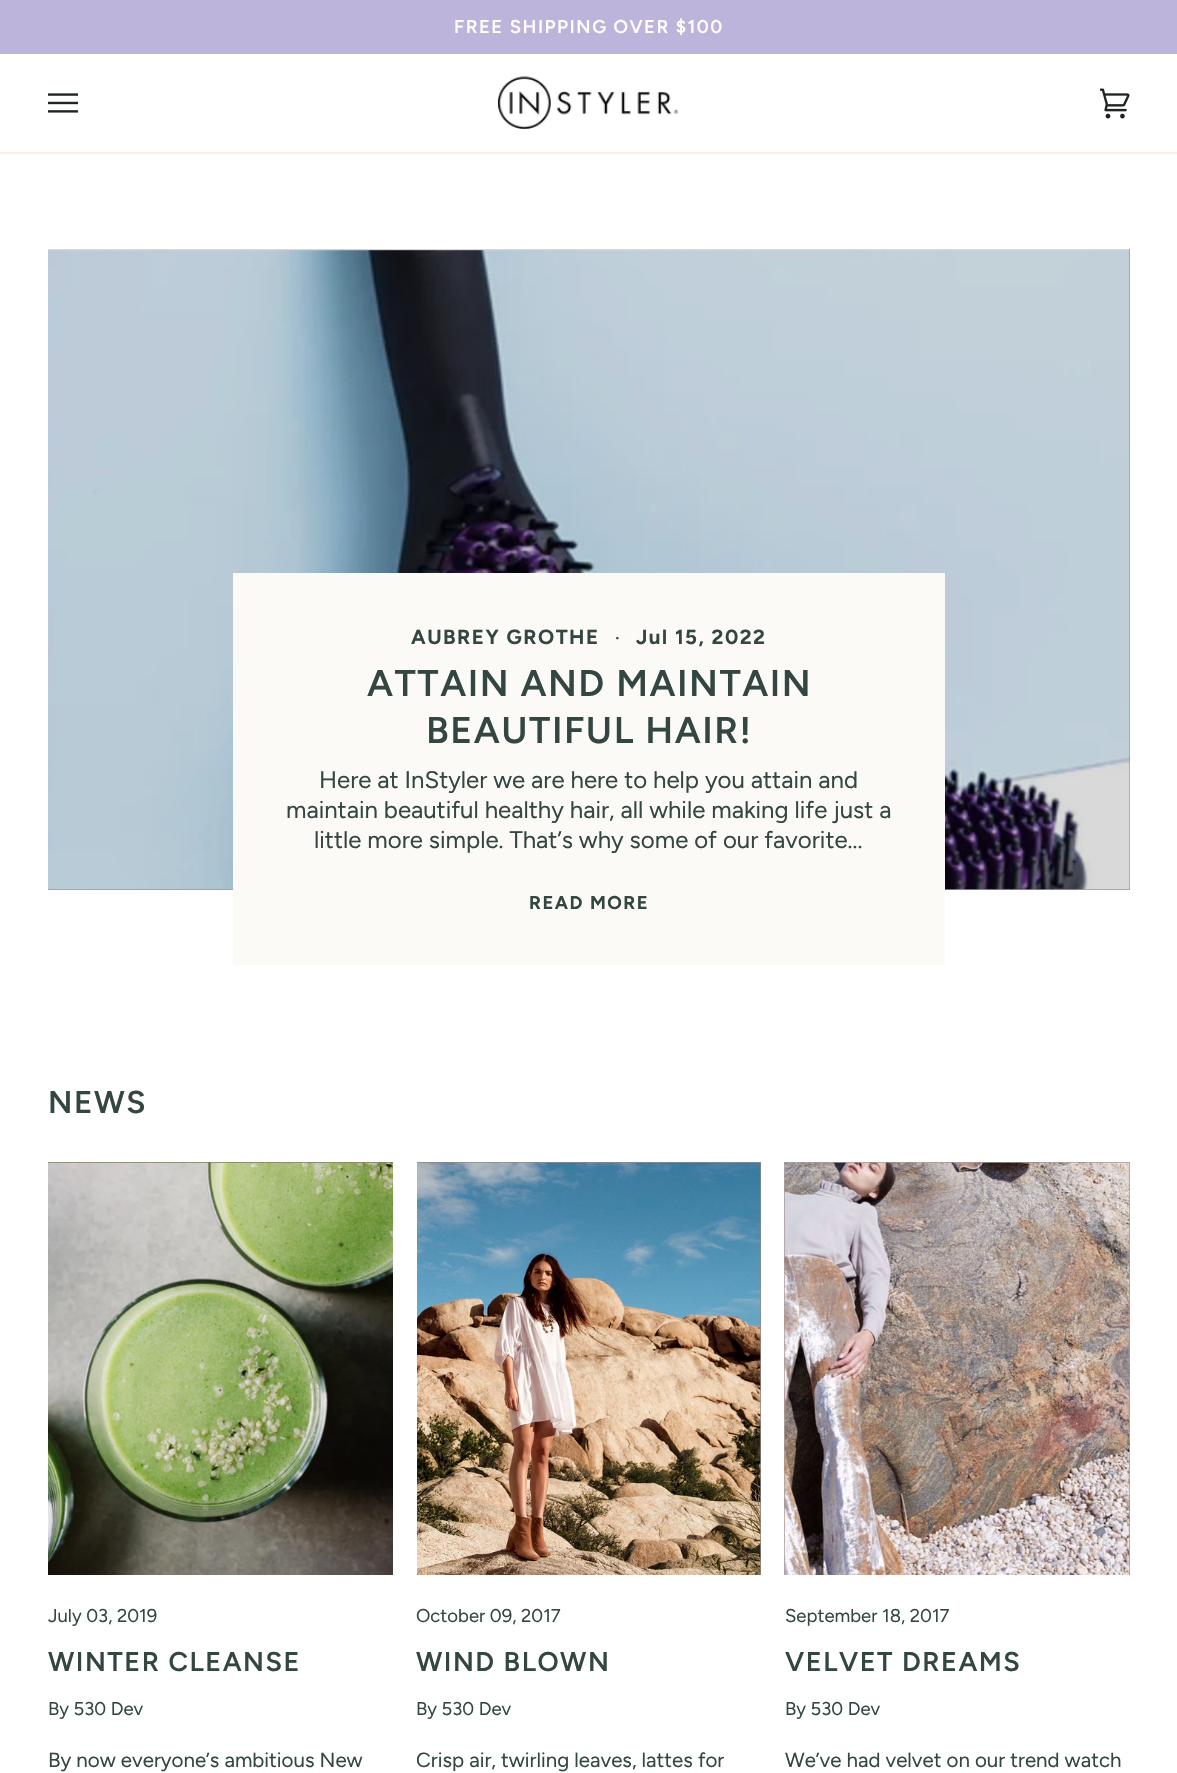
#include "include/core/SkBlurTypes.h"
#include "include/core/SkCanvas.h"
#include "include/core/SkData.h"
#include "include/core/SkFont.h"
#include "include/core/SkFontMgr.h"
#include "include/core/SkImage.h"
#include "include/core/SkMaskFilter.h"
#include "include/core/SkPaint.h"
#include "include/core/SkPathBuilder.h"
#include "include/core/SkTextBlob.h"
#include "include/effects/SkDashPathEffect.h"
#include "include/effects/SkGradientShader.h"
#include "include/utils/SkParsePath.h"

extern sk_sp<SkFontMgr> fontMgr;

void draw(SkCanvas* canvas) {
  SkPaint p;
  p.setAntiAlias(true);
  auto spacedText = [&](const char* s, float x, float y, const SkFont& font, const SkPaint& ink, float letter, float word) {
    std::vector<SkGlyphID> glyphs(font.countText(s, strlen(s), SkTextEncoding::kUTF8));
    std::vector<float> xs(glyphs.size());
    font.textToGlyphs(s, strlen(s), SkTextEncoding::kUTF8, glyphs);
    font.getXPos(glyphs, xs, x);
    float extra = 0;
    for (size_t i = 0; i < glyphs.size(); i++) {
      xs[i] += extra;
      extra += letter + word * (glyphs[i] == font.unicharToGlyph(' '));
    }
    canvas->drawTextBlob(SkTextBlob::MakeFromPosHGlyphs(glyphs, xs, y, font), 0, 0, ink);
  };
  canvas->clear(SK_ColorWHITE);
  p.setColor(SkColorSetRGB(188, 180, 218));
  canvas->drawRect(SkRect::MakeLTRB(0, 0, 1177, 54), p);
  p.setColor(SkColorSetRGB(248, 240, 231));
  canvas->drawRect(SkRect::MakeLTRB(0, 152, 1177, 154), p);
  canvas->drawImageRect(SkImages::DeferredFromEncodedData(SkData::MakeFromFileName("images/1.png")), SkRect::MakeLTRB(48, 93, 78, 113), SkSamplingOptions());
  canvas->drawImageRect(SkImages::DeferredFromEncodedData(SkData::MakeFromFileName("images/2.png")), SkRect::MakeLTRB(498, 76, 678, 129), SkSamplingOptions());
  canvas->drawImageRect(SkImages::DeferredFromEncodedData(SkData::MakeFromFileName("images/3.png")), SkRect::MakeLTRB(1100, 88, 1130, 119), SkSamplingOptions());
  p.setColor(SkColorSetRGB(146, 156, 168));
  canvas->drawRect(SkRect::MakeLTRB(48, 249, 1130, 890), p);
  canvas->drawImageRect(SkImages::DeferredFromEncodedData(SkData::MakeFromFileName("images/4.png")), SkRect::MakeLTRB(48, 249, 1130, 890), SkSamplingOptions());
  p.setColor(SkColorSetRGB(252, 250, 247));
  canvas->drawRect(SkRect::MakeLTRB(233, 573, 945, 965), p);
  p.setColor(SkColorSetRGB(122, 129, 101));
  canvas->drawRect(SkRect::MakeLTRB(48, 1162, 393, 1163), p);
  canvas->drawImageRect(SkImages::DeferredFromEncodedData(SkData::MakeFromFileName("images/5.png")), SkRect::MakeLTRB(48, 1162, 393, 1575), SkSamplingOptions());
  p.setColor(SkColorSetRGB(139, 139, 135));
  canvas->drawRect(SkRect::MakeLTRB(417, 1162, 761, 1575), p);
  canvas->drawImageRect(SkImages::DeferredFromEncodedData(SkData::MakeFromFileName("images/6.png")), SkRect::MakeLTRB(417, 1162, 761, 1575), SkSamplingOptions());
  p.setColor(SkColorSetRGB(171, 155, 151));
  canvas->drawRect(SkRect::MakeLTRB(784, 1162, 1130, 1575), p);
  canvas->drawImageRect(SkImages::DeferredFromEncodedData(SkData::MakeFromFileName("images/7.png")), SkRect::MakeLTRB(784, 1162, 1130, 1575), SkSamplingOptions());
  SkFont font1(fontMgr->matchFamilyStyle("Figtree", SkFontStyle(600, SkFontStyle::kNormal_Width, SkFontStyle::kUpright_Slant)), 18.5f);
  font1.setSubpixel(true);
  p.setColor(SkColorSetRGB(255, 252, 249));
  spacedText("FREE SHIPPING OVER $100", 454, 33, font1, p, 1.5f, 0);
  SkFont font2(fontMgr->matchFamilyStyle("Figtree", SkFontStyle::Bold()), 20.5f);
  font2.setSubpixel(true);
  p.setColor(SkColorSetRGB(51, 70, 65));
  spacedText("AUBREY GROTHE", 411, 644, font2, p, 1.5f, 0);
  SkFont font3(fontMgr->matchFamilyStyle("Figtree", SkFontStyle::Bold()), 10);
  font3.setSubpixel(true);
  spacedText("•", 615, 641, font3, p, 1.5f, 0);
  spacedText("Jul 15, 2022", 636, 644, font2, p, 1.5f, 0);
  SkFont font4(fontMgr->matchFamilyStyle("Figtree", SkFontStyle(600, SkFontStyle::kNormal_Width, SkFontStyle::kUpright_Slant)), 37.25f);
  font4.setSubpixel(true);
  spacedText("ATTAIN AND MAINTAIN", 367, 696, font4, p, 1.5f, 0);
  spacedText("BEAUTIFUL HAIR!", 426, 743, font4, p, 1.5f, 0);
  SkFont font5(fontMgr->matchFamilyStyle("Figtree", SkFontStyle::Normal()), 24);
  font5.setSubpixel(true);
  canvas->drawString("Here at InStyler we are here to help you attain and", 319, 788, font5, p);
  canvas->drawString("maintain beautiful healthy hair, all while making life just a", 286, 818, font5, p);
  canvas->drawString("little more simple. That’s why some of our favorite...", 314, 848, font5, p);
  SkFont font6(fontMgr->matchFamilyStyle("Figtree", SkFontStyle::Bold()), 18.5f);
  font6.setSubpixel(true);
  spacedText("READ MORE", 529, 909, font6, p, 1.5f, 0);
  SkFont font7(fontMgr->matchFamilyStyle("Figtree", SkFontStyle(600, SkFontStyle::kNormal_Width, SkFontStyle::kUpright_Slant)), 31.5f);
  font7.setSubpixel(true);
  spacedText("NEWS", 48, 1113, font7, p, 1.5f, 0);
  SkFont font8(fontMgr->matchFamilyStyle("Figtree", SkFontStyle::Normal()), 18.5f);
  font8.setSubpixel(true);
  canvas->drawString("July 03, 2019", 48, 1622, font8, p);
  SkFont font9(fontMgr->matchFamilyStyle("Figtree", SkFontStyle(600, SkFontStyle::kNormal_Width, SkFontStyle::kUpright_Slant)), 27);
  font9.setSubpixel(true);
  spacedText("WINTER CLEANSE", 48, 1671, font9, p, 1.5f, 0);
  canvas->drawString("By 530 Dev", 48, 1715, font8, p);
  SkFont font10(fontMgr->matchFamilyStyle("Figtree", SkFontStyle::Normal()), 20.5f);
  font10.setSubpixel(true);
  canvas->drawString("By now everyone’s ambitious New", 48, 1767, font10, p);
  canvas->drawString("October 09, 2017", 416, 1622, font8, p);
  spacedText("WIND BLOWN", 416, 1671, font9, p, 1.5f, 0);
  canvas->drawString("By 530 Dev", 416, 1715, font8, p);
  canvas->drawString("Crisp air, twirling leaves, lattes for", 416, 1767, font10, p);
  canvas->drawString("September 18, 2017", 785, 1622, font8, p);
  spacedText("VELVET DREAMS", 785, 1671, font9, p, 1.5f, 0);
  canvas->drawString("By 530 Dev", 785, 1715, font8, p);
  canvas->drawString("We’ve had velvet on our trend watch", 785, 1767, font10, p);
}
